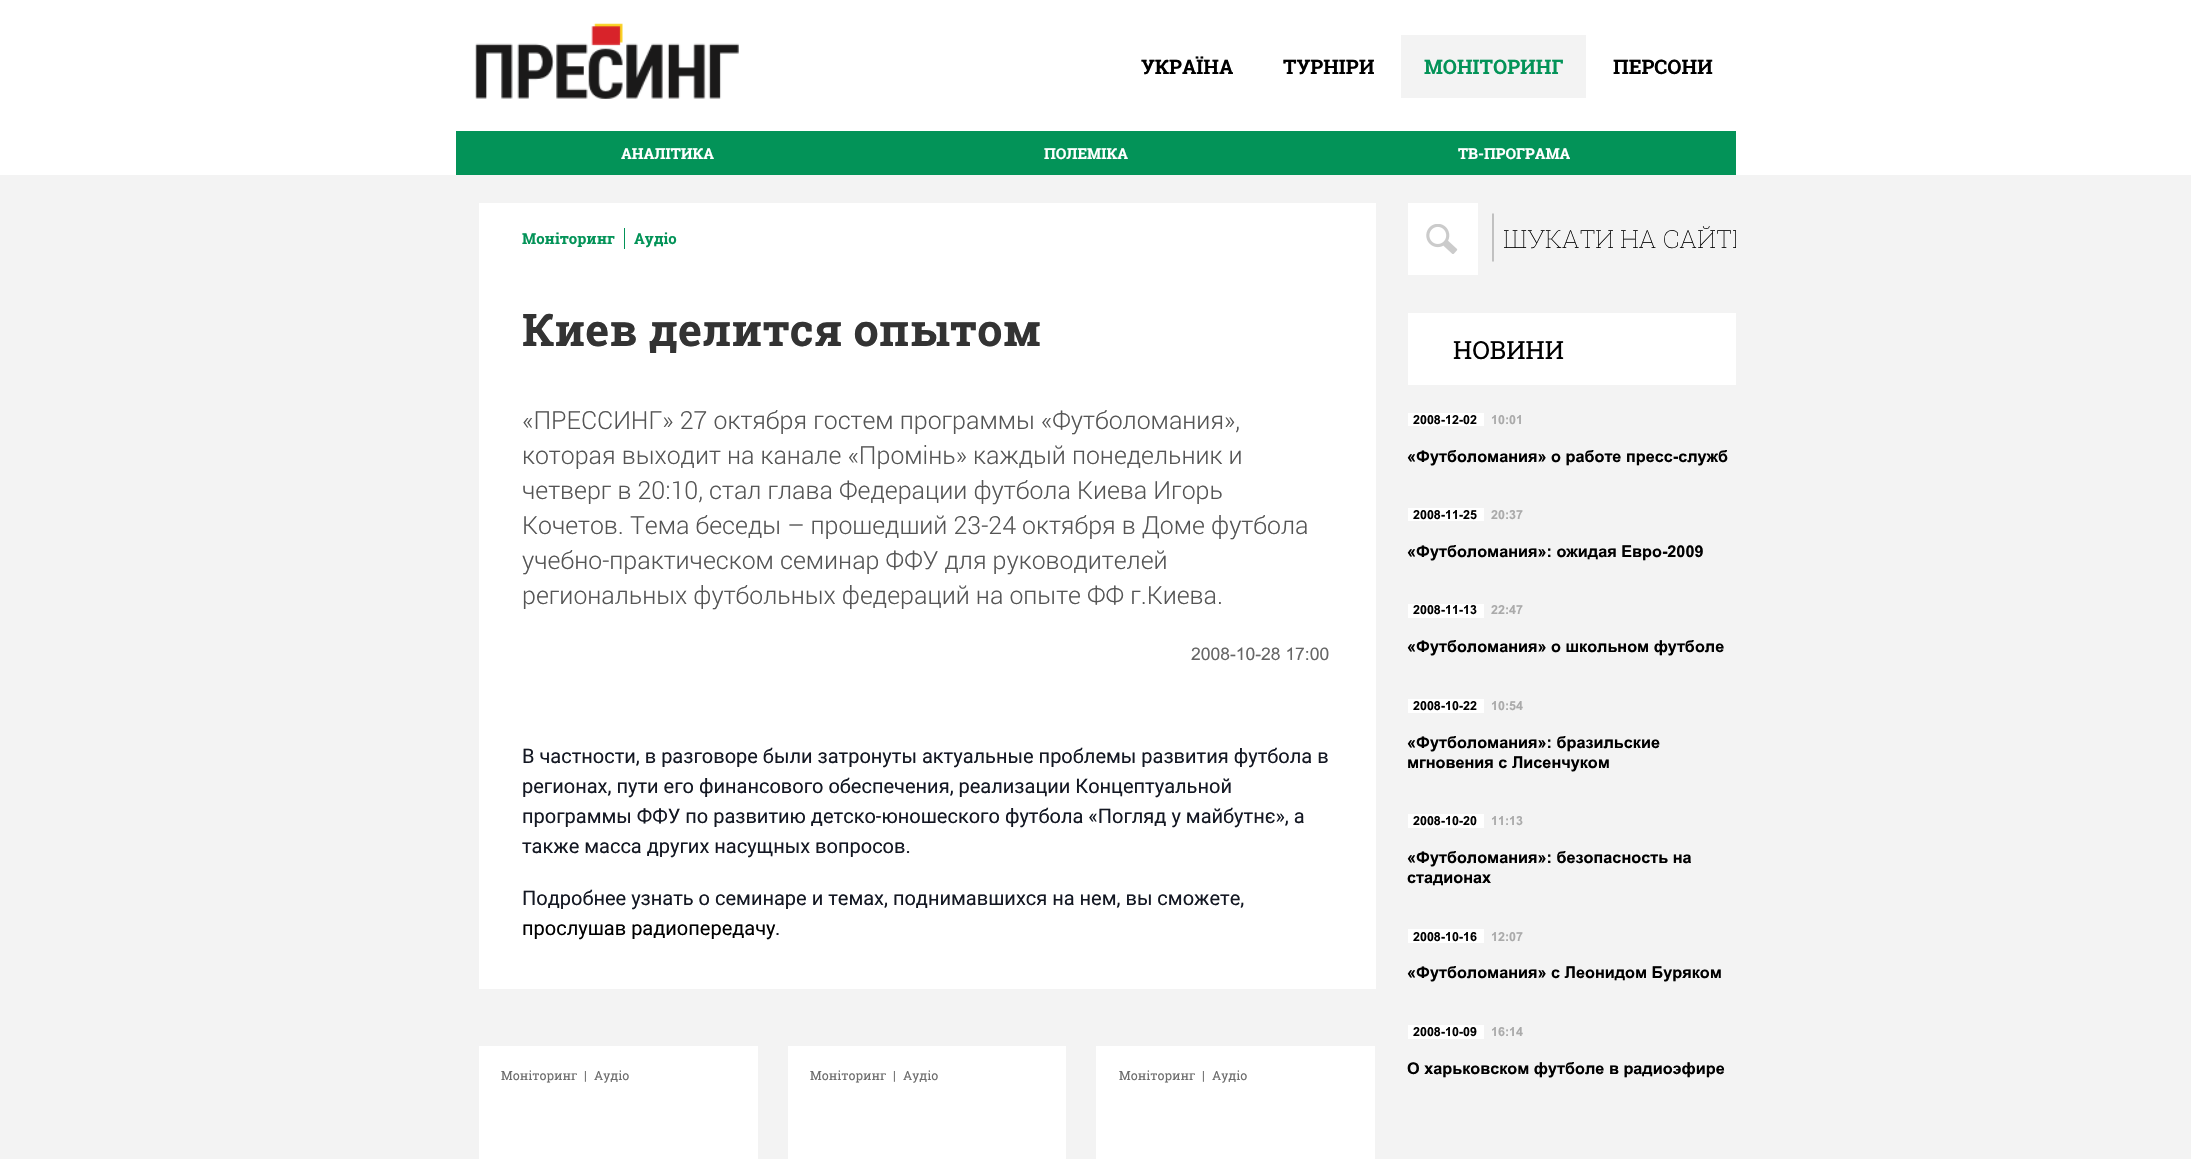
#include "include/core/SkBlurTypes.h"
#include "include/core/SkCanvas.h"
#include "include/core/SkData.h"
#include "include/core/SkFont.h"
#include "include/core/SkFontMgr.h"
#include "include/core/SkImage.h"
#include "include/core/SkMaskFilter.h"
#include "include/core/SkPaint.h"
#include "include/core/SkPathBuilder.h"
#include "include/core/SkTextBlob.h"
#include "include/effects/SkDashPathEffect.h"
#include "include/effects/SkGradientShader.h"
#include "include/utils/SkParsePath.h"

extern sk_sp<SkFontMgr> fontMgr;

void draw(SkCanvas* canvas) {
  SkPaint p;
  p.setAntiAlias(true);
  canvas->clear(SkColorSetRGB(243, 243, 243));
  p.setColor(SK_ColorWHITE);
  canvas->drawRect(SkRect::MakeLTRB(0, 0, 2191, 175), p);
  canvas->drawImageRect(SkImages::DeferredFromEncodedData(SkData::MakeFromFileName("images/1.png")), SkRect::MakeLTRB(475, 23, 739, 99), SkSamplingOptions());
  p.setColor(SkColorSetRGB(243, 243, 243));
  canvas->drawRect(SkRect::MakeLTRB(1401, 35, 1586, 98), p);
  p.setColor(SkColorSetRGB(3, 147, 88));
  canvas->drawRect(SkRect::MakeLTRB(456, 131, 1736, 175), p);
  p.setColor(SK_ColorWHITE);
  canvas->drawRect(SkRect::MakeLTRB(479, 203, 1376, 989), p);
  p.setColor(SkColorSetRGB(3, 147, 88));
  canvas->drawRect(SkRect::MakeLTRB(624, 228, 625, 249), p);
  p.setColor(SK_ColorWHITE);
  canvas->drawRect(SkRect::MakeLTRB(479, 1046, 758, 1159), p);
  canvas->drawRect(SkRect::MakeLTRB(788, 1046, 1066, 1159), p);
  canvas->drawRect(SkRect::MakeLTRB(1096, 1046, 1375, 1159), p);
  canvas->drawRect(SkRect::MakeLTRB(1408, 203, 1478, 275), p);
  canvas->drawImageRect(SkImages::DeferredFromEncodedData(SkData::MakeFromFileName("images/2.png")), SkRect::MakeLTRB(1426, 224, 1458, 254), SkSamplingOptions());
  p.setStyle(SkPaint::kStroke_Style);
  p.setStrokeWidth(1.1f);
  p.setStrokeCap(SkPaint::kSquare_Cap);
  p.setColor(SkColorSetRGB(151, 151, 151));
  canvas->drawPath(SkPathBuilder().moveTo(1493, 214).lineTo(1493, 261).detach(), p);
  p.setStyle(SkPaint::kFill_Style);
  p.setColor(SK_ColorWHITE);
  canvas->drawRect(SkRect::MakeLTRB(1408, 313, 1736, 385), p);
  canvas->drawRect(SkRect::MakeLTRB(1408, 413, 1484, 426), p);
  canvas->drawRect(SkRect::MakeLTRB(1408, 508, 1484, 521), p);
  canvas->drawRect(SkRect::MakeLTRB(1408, 604, 1484, 618), p);
  canvas->drawRect(SkRect::MakeLTRB(1408, 699, 1484, 713), p);
  canvas->drawRect(SkRect::MakeLTRB(1408, 814, 1484, 828), p);
  canvas->drawRect(SkRect::MakeLTRB(1408, 929, 1484, 943), p);
  canvas->drawRect(SkRect::MakeLTRB(1408, 1025, 1484, 1039), p);
  SkFont font1(fontMgr->matchFamilyStyle("Roboto Slab", SkFontStyle::Bold()), 20);
  font1.setSubpixel(true);
  p.setColor(SK_ColorBLACK);
  canvas->drawString("УКРАЇНА", 1141, 74, font1, p);
  canvas->drawString("ТУРНІРИ", 1283, 74, font1, p);
  p.setColor(SkColorSetRGB(3, 147, 88));
  canvas->drawString("МОНІТОРИНГ", 1424, 74, font1, p);
  p.setColor(SK_ColorBLACK);
  canvas->drawString("ПЕРСОНИ", 1613, 74, font1, p);
  SkFont font2(fontMgr->matchFamilyStyle("Roboto Slab", SkFontStyle::Bold()), 15);
  font2.setSubpixel(true);
  p.setColor(SK_ColorWHITE);
  canvas->drawString("АНАЛІТИКА", 621, 159, font2, p);
  canvas->drawString("ПОЛЕМІКА", 1044, 159, font2, p);
  canvas->drawString("ТВ-ПРОГРАМА", 1458, 159, font2, p);
  p.setColor(SkColorSetRGB(3, 147, 88));
  canvas->drawString("Моніторинг", 522, 244, font2, p);
  canvas->drawString("Аудіо", 634, 244, font2, p);
  SkFont font3(fontMgr->matchFamilyStyle("Roboto Slab", SkFontStyle::Bold()), 45);
  font3.setSubpixel(true);
  p.setColor(SkColorSetRGB(51, 51, 51));
  canvas->drawString("Киев делится опытом", 522, 346, font3, p);
  SkFont font4(fontMgr->matchFamilyStyle("Roboto", SkFontStyle(300, SkFontStyle::kNormal_Width, SkFontStyle::kUpright_Slant)), 25);
  font4.setSubpixel(true);
  p.setColor(SkColorSetRGB(85, 85, 85));
  canvas->drawString("«ПРЕССИНГ» 27 октября гостем программы «Футболомания»,", 522, 429, font4, p);
  canvas->drawString("которая выходит на канале «Промінь» каждый понедельник и", 522, 464, font4, p);
  canvas->drawString("четверг в 20:10, стал глава Федерации футбола Киева Игорь", 522, 499, font4, p);
  canvas->drawString("Кочетов. Тема беседы – прошедший 23-24 октября в Доме футбола", 522, 534, font4, p);
  canvas->drawString("учебно-практическом семинар ФФУ для руководителей", 522, 569, font4, p);
  canvas->drawString("региональных футбольных федераций на опыте ФФ г.Киева.", 522, 604, font4, p);
  SkFont font5(fontMgr->matchFamilyStyle("Arial", SkFontStyle::Normal()), 17.5f);
  font5.setSubpixel(true);
  p.setColor(SkColorSetRGB(102, 102, 102));
  canvas->drawString("2008-10-28 17:00", 1191, 660, font5, p);
  SkFont font6(fontMgr->matchFamilyStyle("Roboto", SkFontStyle::Normal()), 20);
  font6.setSubpixel(true);
  p.setColor(SkColorSetRGB(20, 24, 35));
  canvas->drawString("В частности, в разговоре были затронуты актуальные проблемы развития футбола в", 522, 763, font6, p);
  canvas->drawString("регионах, пути его финансового обеспечения, реализации Концептуальной", 522, 793, font6, p);
  canvas->drawString("программы ФФУ по развитию детско-юношеского футбола «Погляд у майбутнє», а", 522, 823, font6, p);
  canvas->drawString("также масса других насущных вопросов.", 522, 853, font6, p);
  canvas->drawString("Подробнее узнать о семинаре и темах, поднимавшихся на нем, вы сможете,", 522, 905, font6, p);
  p.setColor(SK_ColorBLACK);
  canvas->drawString("прослушав радиопередачу", 522, 935, font6, p);
  p.setColor(SkColorSetRGB(20, 24, 35));
  canvas->drawString(".", 775, 935, font6, p);
  SkFont font7(fontMgr->matchFamilyStyle("Roboto Slab", SkFontStyle::Normal()), 12.5f);
  font7.setSubpixel(true);
  p.setColor(SkColorSetRGB(108, 108, 108));
  canvas->drawString("Моніторинг", 501, 1080, font7, p);
  canvas->drawString("|", 584, 1080, font7, p);
  canvas->drawString("Аудіо", 594, 1080, font7, p);
  canvas->drawString("Моніторинг", 810, 1080, font7, p);
  canvas->drawString("|", 893, 1080, font7, p);
  canvas->drawString("Аудіо", 903, 1080, font7, p);
  canvas->drawString("Моніторинг", 1119, 1080, font7, p);
  canvas->drawString("|", 1202, 1080, font7, p);
  canvas->drawString("Аудіо", 1212, 1080, font7, p);
  canvas->save();
  canvas->clipRect(SkRect::MakeLTRB(1504, 221, 1736, 254));
  SkFont font8(fontMgr->matchFamilyStyle("Roboto Slab", SkFontStyle(100, SkFontStyle::kNormal_Width, SkFontStyle::kUpright_Slant)), 25);
  font8.setSubpixel(true);
  p.setColor(SK_ColorBLACK);
  canvas->drawString("ШУКАТИ НА САЙТІ", 1503, 248, font8, p);
  canvas->restore();
  SkFont font9(fontMgr->matchFamilyStyle("Roboto Slab", SkFontStyle::Normal()), 25);
  font9.setSubpixel(true);
  canvas->drawString("НОВИНИ", 1453, 359, font9, p);
  SkFont font10(fontMgr->matchFamilyStyle("Arial", SkFontStyle::Bold()), 12.5f);
  font10.setSubpixel(true);
  canvas->drawString("2008-12-02", 1413, 424, font10, p);
  p.setColor(SkColorSetRGB(170, 170, 170));
  canvas->drawString("10:01", 1491, 424, font10, p);
  SkFont font11(fontMgr->matchFamilyStyle("Arial", SkFontStyle::Bold()), 16.25f);
  font11.setSubpixel(true);
  p.setColor(SK_ColorBLACK);
  canvas->drawString("«Футболомания» о работе пресс-служб", 1407, 462, font11, p);
  canvas->drawString("2008-11-25", 1413, 519, font10, p);
  p.setColor(SkColorSetRGB(170, 170, 170));
  canvas->drawString("20:37", 1491, 519, font10, p);
  p.setColor(SK_ColorBLACK);
  canvas->drawString("«Футболомания»: ожидая Евро-2009", 1407, 557, font11, p);
  canvas->drawString("2008-11-13", 1413, 614, font10, p);
  p.setColor(SkColorSetRGB(170, 170, 170));
  canvas->drawString("22:47", 1491, 614, font10, p);
  p.setColor(SK_ColorBLACK);
  canvas->drawString("«Футболомания» о школьном футболе", 1407, 652, font11, p);
  canvas->drawString("2008-10-22", 1413, 710, font10, p);
  p.setColor(SkColorSetRGB(170, 170, 170));
  canvas->drawString("10:54", 1491, 710, font10, p);
  p.setColor(SK_ColorBLACK);
  canvas->drawString("«Футболомания»: бразильские", 1407, 748, font11, p);
  canvas->drawString("мгновения с Лисенчуком", 1407, 768, font11, p);
  canvas->drawString("2008-10-20", 1413, 825, font10, p);
  p.setColor(SkColorSetRGB(170, 170, 170));
  canvas->drawString("11:13", 1491, 825, font10, p);
  p.setColor(SK_ColorBLACK);
  canvas->drawString("«Футболомания»: безопасность на", 1407, 863, font11, p);
  canvas->drawString("стадионах", 1407, 883, font11, p);
  canvas->drawString("2008-10-16", 1413, 941, font10, p);
  p.setColor(SkColorSetRGB(170, 170, 170));
  canvas->drawString("12:07", 1491, 941, font10, p);
  p.setColor(SK_ColorBLACK);
  canvas->drawString("«Футболомания» с Леонидом Буряком", 1407, 978, font11, p);
  canvas->drawString("2008-10-09", 1413, 1036, font10, p);
  p.setColor(SkColorSetRGB(170, 170, 170));
  canvas->drawString("16:14", 1491, 1036, font10, p);
  p.setColor(SK_ColorBLACK);
  canvas->drawString("О харьковском футболе в радиоэфире", 1407, 1074, font11, p);
}
